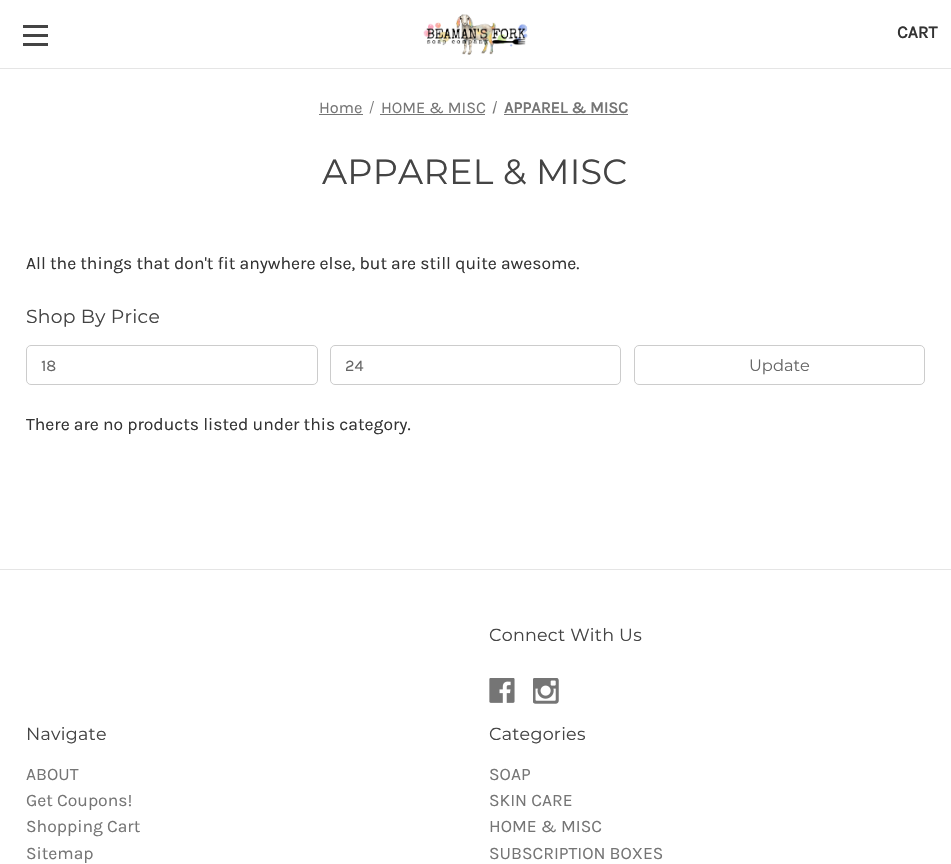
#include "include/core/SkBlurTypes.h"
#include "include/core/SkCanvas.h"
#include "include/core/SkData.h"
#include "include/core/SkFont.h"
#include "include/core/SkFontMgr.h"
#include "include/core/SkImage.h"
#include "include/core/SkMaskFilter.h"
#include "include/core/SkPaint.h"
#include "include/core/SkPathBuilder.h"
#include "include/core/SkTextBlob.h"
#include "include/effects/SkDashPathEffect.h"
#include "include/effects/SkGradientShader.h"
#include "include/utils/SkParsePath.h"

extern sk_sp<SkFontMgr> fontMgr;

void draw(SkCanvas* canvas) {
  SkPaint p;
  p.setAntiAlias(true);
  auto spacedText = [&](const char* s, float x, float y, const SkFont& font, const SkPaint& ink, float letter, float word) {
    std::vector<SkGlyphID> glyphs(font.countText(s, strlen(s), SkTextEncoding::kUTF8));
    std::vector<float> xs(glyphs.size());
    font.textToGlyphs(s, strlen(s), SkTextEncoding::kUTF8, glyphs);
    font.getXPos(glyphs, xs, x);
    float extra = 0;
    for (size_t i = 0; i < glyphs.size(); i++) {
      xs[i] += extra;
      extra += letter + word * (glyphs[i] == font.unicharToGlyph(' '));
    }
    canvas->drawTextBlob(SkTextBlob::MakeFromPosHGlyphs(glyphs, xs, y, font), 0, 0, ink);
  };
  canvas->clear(SK_ColorWHITE);
  p.setColor(SkColorSetRGB(229, 229, 229));
  canvas->drawRect(SkRect::MakeLTRB(0, 68, 951, 69), p);
  p.setColor(SkColorSetRGB(68, 68, 68));
  canvas->drawRect(SkRect::MakeLTRB(23, 34, 48, 37), p);
  canvas->drawRect(SkRect::MakeLTRB(23, 25, 48, 28), p);
  canvas->drawRect(SkRect::MakeLTRB(23, 43, 48, 46), p);
  canvas->drawImageRect(SkImages::DeferredFromEncodedData(SkData::MakeFromFileName("images/1.png")), SkRect::MakeLTRB(423, 14, 528, 55), SkSamplingOptions());
  p.setColor(SkColorSetRGB(117, 117, 117));
  canvas->drawRect(SkRect::MakeLTRB(319, 114, 363, 115), p);
  canvas->drawPath(SkPathBuilder().moveTo(373, 101).lineTo(374, 101).lineTo(370.5f, 113.5f).lineTo(369.5f, 113.5f).close().detach(), p);
  canvas->drawRect(SkRect::MakeLTRB(380, 114, 485, 115), p);
  canvas->drawPath(SkPathBuilder().moveTo(496, 101).lineTo(497, 101).lineTo(494, 113.5f).lineTo(492.5f, 113.5f).close().detach(), p);
  canvas->drawRect(SkRect::MakeLTRB(504, 114, 628, 115), p);
  p.setStyle(SkPaint::kStroke_Style);
  p.setStrokeWidth(1);
  p.setColor(SkColorSetRGB(204, 204, 204));
  canvas->drawRoundRect(SkRect::MakeLTRB(26.5f, 345.5f, 317.5f, 384.5f), 4.5f, 4.5f, p);
  canvas->drawRoundRect(SkRect::MakeLTRB(330.5f, 345.5f, 620.5f, 384.5f), 4.5f, 4.5f, p);
  canvas->drawRoundRect(SkRect::MakeLTRB(634.5f, 345.5f, 924.5f, 384.5f), 4.5f, 4.5f, p);
  p.setStyle(SkPaint::kFill_Style);
  p.setColor(SkColorSetRGB(229, 229, 229));
  canvas->drawRect(SkRect::MakeLTRB(0, 569, 951, 570), p);
  canvas->drawImageRect(SkImages::DeferredFromEncodedData(SkData::MakeFromFileName("images/2.png")), SkRect::MakeLTRB(489, 678, 515, 703), SkSamplingOptions());
  canvas->drawImageRect(SkImages::DeferredFromEncodedData(SkData::MakeFromFileName("images/3.png")), SkRect::MakeLTRB(533, 678, 559, 704), SkSamplingOptions());
  SkFont font1(fontMgr->matchFamilyStyle("Karla", SkFontStyle::Bold()), 17.5f);
  font1.setSubpixel(true);
  p.setColor(SkColorSetRGB(51, 51, 51));
  canvas->drawString("CART", 897, 38, font1, p);
  SkFont font2(fontMgr->matchFamilyStyle("Karla", SkFontStyle::Normal()), 16.25f);
  font2.setSubpixel(true);
  p.setColor(SkColorSetRGB(117, 117, 117));
  canvas->drawString("Home", 319, 113, font2, p);
  canvas->drawString("HOME & MISC", 381, 113, font2, p);
  SkFont font3(fontMgr->matchFamilyStyle("Karla", SkFontStyle::Bold()), 16.25f);
  font3.setSubpixel(true);
  canvas->drawString("APPAREL & MISC", 504, 113, font3, p);
  SkFont font4(fontMgr->matchFamilyStyle("Montserrat", SkFontStyle(100, SkFontStyle::kNormal_Width, SkFontStyle::kUpright_Slant)), 35);
  font4.setSubpixel(true);
  p.setColor(SkColorSetRGB(68, 68, 68));
  spacedText("APPAREL & MISC", 322, 184, font4, p, 0.25f, 0);
  SkFont font5(fontMgr->matchFamilyStyle("Karla", SkFontStyle::Normal()), 17.5f);
  font5.setSubpixel(true);
  p.setColor(SkColorSetRGB(51, 51, 51));
  canvas->drawString("All the things that don't fit anywhere else, but are still quite awesome.", 26, 269, font5, p);
  SkFont font6(fontMgr->matchFamilyStyle("Montserrat", SkFontStyle(100, SkFontStyle::kNormal_Width, SkFontStyle::kUpright_Slant)), 18.75f);
  font6.setSubpixel(true);
  p.setColor(SkColorSetRGB(68, 68, 68));
  spacedText("Shop By Price", 26, 323, font6, p, 0.25f, 0);
  p.setColor(SkColorSetRGB(102, 102, 102));
  canvas->drawString("18", 41, 371, font2, p);
  canvas->drawString("24", 345, 371, font2, p);
  SkFont font7(fontMgr->matchFamilyStyle("Montserrat", SkFontStyle(100, SkFontStyle::kNormal_Width, SkFontStyle::kUpright_Slant)), 16.25f);
  font7.setSubpixel(true);
  canvas->drawString("Update", 749, 371, font7, p);
  p.setColor(SkColorSetRGB(51, 51, 51));
  canvas->drawString("There are no products listed under this category.", 26, 430, font5, p);
  SkFont font8(fontMgr->matchFamilyStyle("Montserrat", SkFontStyle(100, SkFontStyle::kNormal_Width, SkFontStyle::kUpright_Slant)), 17.5f);
  font8.setSubpixel(true);
  p.setColor(SkColorSetRGB(68, 68, 68));
  spacedText("Connect With Us", 489, 641, font8, p, 0.25f, 0);
  spacedText("Navigate", 26, 740, font8, p, 0.25f, 0);
  p.setColor(SkColorSetRGB(117, 117, 117));
  canvas->drawString("ABOUT", 26, 780, font5, p);
  canvas->drawString("Get Coupons!", 26, 806, font5, p);
  canvas->drawString("Shopping Cart", 26, 832, font5, p);
  canvas->drawString("Sitemap", 26, 859, font5, p);
  p.setColor(SkColorSetRGB(68, 68, 68));
  spacedText("Categories", 489, 740, font8, p, 0.25f, 0);
  p.setColor(SkColorSetRGB(117, 117, 117));
  canvas->drawString("SOAP", 489, 780, font5, p);
  canvas->drawString("SKIN CARE", 489, 806, font5, p);
  canvas->drawString("HOME & MISC", 489, 832, font5, p);
  canvas->drawString("SUBSCRIPTION BOXES", 489, 859, font5, p);
}
